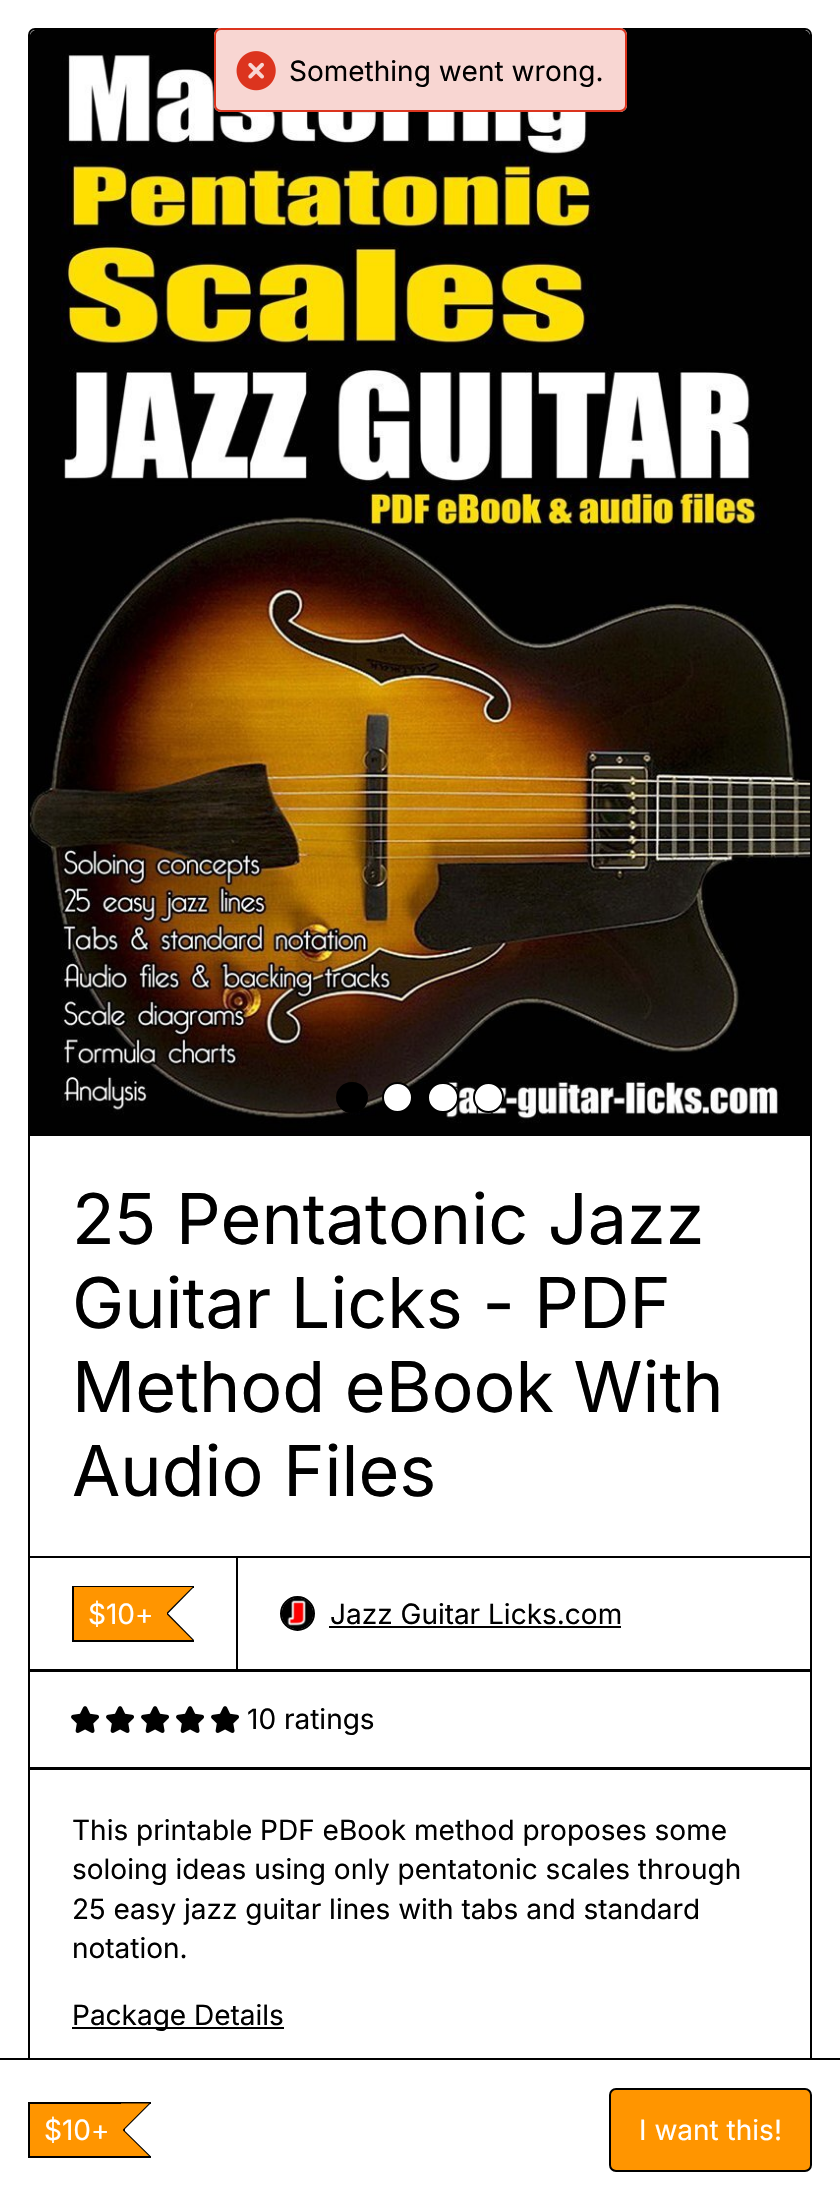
#include "include/core/SkBlurTypes.h"
#include "include/core/SkCanvas.h"
#include "include/core/SkData.h"
#include "include/core/SkFont.h"
#include "include/core/SkFontMgr.h"
#include "include/core/SkImage.h"
#include "include/core/SkMaskFilter.h"
#include "include/core/SkPaint.h"
#include "include/core/SkPathBuilder.h"
#include "include/core/SkTextBlob.h"
#include "include/effects/SkDashPathEffect.h"
#include "include/effects/SkGradientShader.h"
#include "include/utils/SkParsePath.h"

extern sk_sp<SkFontMgr> fontMgr;

void draw(SkCanvas* canvas) {
  SkPaint p;
  p.setAntiAlias(true);
  canvas->clear(SK_ColorWHITE);
  p.setStyle(SkPaint::kStroke_Style);
  p.setStrokeWidth(2);
  p.setColor(SK_ColorBLACK);
  canvas->drawRoundRect(SkRect::MakeLTRB(29, 29, 811, 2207), 6, 6, p);
  canvas->drawImageRect(SkImages::DeferredFromEncodedData(SkData::MakeFromFileName("images/2.png")), SkRect::MakeLTRB(29, 30, 811, 1134), SkSamplingOptions());
  p.setStyle(SkPaint::kFill_Style);
  p.setColor(SK_ColorWHITE);
  canvas->drawRoundRect(SkRect::MakeLTRB(214, 28, 627, 112), 7, 7, p);
  p.setColor(SkColorSetARGB(51, 220, 52, 30));
  canvas->drawRoundRect(SkRect::MakeLTRB(215, 29, 626, 111), 6, 6, p);
  p.setStyle(SkPaint::kStroke_Style);
  p.setColor(SkColorSetRGB(220, 52, 30));
  canvas->drawRoundRect(SkRect::MakeLTRB(215, 29, 626, 111), 6, 6, p);
  canvas->drawImageRect(SkImages::DeferredFromEncodedData(SkData::MakeFromFileName("images/1.png")), SkRect::MakeLTRB(236, 51, 276, 91), SkSamplingOptions());
  p.setStyle(SkPaint::kFill_Style);
  p.setColor(SK_ColorBLACK);
  canvas->drawRect(SkRect::MakeLTRB(30, 1134, 810, 1136), p);
  canvas->drawRoundRect(SkRect::MakeLTRB(337, 1083, 367, 1112), 14.5f, 14.5f, p);
  p.setStyle(SkPaint::kStroke_Style);
  canvas->drawRoundRect(SkRect::MakeLTRB(337, 1083, 367, 1112), 14.5f, 14.5f, p);
  p.setStyle(SkPaint::kFill_Style);
  p.setColor(SK_ColorWHITE);
  canvas->drawCircle(397.5f, 1097.5f, 14.5f, p);
  p.setStyle(SkPaint::kStroke_Style);
  p.setColor(SK_ColorBLACK);
  canvas->drawCircle(397.5f, 1097.5f, 14.5f, p);
  p.setStyle(SkPaint::kFill_Style);
  p.setColor(SK_ColorWHITE);
  canvas->drawRoundRect(SkRect::MakeLTRB(428, 1083, 458, 1112), 14.5f, 14.5f, p);
  p.setStyle(SkPaint::kStroke_Style);
  p.setColor(SK_ColorBLACK);
  canvas->drawRoundRect(SkRect::MakeLTRB(428, 1083, 458, 1112), 14.5f, 14.5f, p);
  p.setStyle(SkPaint::kFill_Style);
  p.setColor(SK_ColorWHITE);
  canvas->drawCircle(488.5f, 1097.5f, 14.5f, p);
  p.setStyle(SkPaint::kStroke_Style);
  p.setColor(SK_ColorBLACK);
  canvas->drawCircle(488.5f, 1097.5f, 14.5f, p);
  canvas->drawRect(SkRect::MakeLTRB(29, 1557, 237, 1670), p);
  p.setStyle(SkPaint::kFill_Style);
  canvas->drawRect(SkRect::MakeLTRB(72, 1586, 194, 1588), p);
  canvas->drawRect(SkRect::MakeLTRB(72, 1640, 194, 1642), p);
  canvas->drawRect(SkRect::MakeLTRB(72, 1586, 74, 1642), p);
  p.setColor(SkColorSetRGB(255, 149, 0));
  canvas->drawRect(SkRect::MakeLTRB(74, 1587, 165, 1640), p);
  p.setColor(SK_ColorBLACK);
  canvas->drawPath(SkPathBuilder().moveTo(166, 1587).lineTo(194, 1587).lineTo(168, 1613.5f).close().detach(), p);
  canvas->drawPath(SkPathBuilder().moveTo(194, 1640).lineTo(166, 1640).lineTo(168, 1613.5f).close().detach(), p);
  canvas->drawRect(SkRect::MakeLTRB(167, 1611, 168, 1616), p);
  p.setColor(SkColorSetRGB(255, 149, 0));
  canvas->drawPath(SkPathBuilder().moveTo(164.5f, 1587).lineTo(192.5f, 1587).lineTo(166, 1613.5f).close().detach(), p);
  canvas->drawPath(SkPathBuilder().moveTo(192.5f, 1640).lineTo(164.5f, 1640).lineTo(166, 1613.5f).close().detach(), p);
  canvas->drawRect(SkRect::MakeLTRB(165, 1596, 167, 1631), p);
  p.setStyle(SkPaint::kStroke_Style);
  p.setColor(SK_ColorBLACK);
  canvas->drawRect(SkRect::MakeLTRB(237, 1557, 811, 1670), p);
  canvas->drawCircle(297.5f, 1613.5f, 16.5f, p);
  canvas->drawImageRect(SkImages::DeferredFromEncodedData(SkData::MakeFromFileName("images/3.png")), SkRect::MakeLTRB(282, 1598, 313, 1629), SkSamplingOptions());
  p.setStyle(SkPaint::kFill_Style);
  canvas->drawRect(SkRect::MakeLTRB(329, 1626, 621, 1628), p);
  p.setStyle(SkPaint::kStroke_Style);
  canvas->drawRect(SkRect::MakeLTRB(29, 1671, 811, 1768), p);
  canvas->drawImageRect(SkImages::DeferredFromEncodedData(SkData::MakeFromFileName("images/4.png")), SkRect::MakeLTRB(71, 1706, 99, 1733), SkSamplingOptions());
  canvas->drawImageRect(SkImages::DeferredFromEncodedData(SkData::MakeFromFileName("images/4.png")), SkRect::MakeLTRB(106, 1706, 134, 1733), SkSamplingOptions());
  canvas->drawImageRect(SkImages::DeferredFromEncodedData(SkData::MakeFromFileName("images/4.png")), SkRect::MakeLTRB(141, 1706, 169, 1733), SkSamplingOptions());
  canvas->drawImageRect(SkImages::DeferredFromEncodedData(SkData::MakeFromFileName("images/4.png")), SkRect::MakeLTRB(176, 1706, 204, 1733), SkSamplingOptions());
  canvas->drawImageRect(SkImages::DeferredFromEncodedData(SkData::MakeFromFileName("images/4.png")), SkRect::MakeLTRB(211, 1706, 239, 1733), SkSamplingOptions());
  p.setStyle(SkPaint::kFill_Style);
  canvas->drawRect(SkRect::MakeLTRB(30, 1769, 810, 1770), p);
  canvas->drawRect(SkRect::MakeLTRB(72, 2027, 284, 2029), p);
  canvas->drawRect(SkRect::MakeLTRB(0, 2058, 840, 2060), p);
  p.setColor(SK_ColorWHITE);
  canvas->drawRect(SkRect::MakeLTRB(28, 2060, 812, 2199), p);
  p.setColor(SK_ColorBLACK);
  canvas->drawRect(SkRect::MakeLTRB(28, 2102, 151, 2104), p);
  canvas->drawRect(SkRect::MakeLTRB(28, 2156, 151, 2158), p);
  canvas->drawRect(SkRect::MakeLTRB(28, 2102, 30, 2158), p);
  p.setColor(SkColorSetRGB(255, 149, 0));
  canvas->drawRect(SkRect::MakeLTRB(30, 2104, 123, 2156), p);
  p.setColor(SK_ColorBLACK);
  canvas->drawPath(SkPathBuilder().moveTo(122.5f, 2103.5f).lineTo(150.5f, 2103.5f).lineTo(124, 2130).close().moveTo(150.5f, 2156).lineTo(122.5f, 2156).lineTo(124, 2130).close().detach(), p);
  canvas->drawRect(SkRect::MakeLTRB(123, 2127, 125, 2133), p);
  p.setColor(SkColorSetRGB(255, 149, 0));
  canvas->drawPath(SkPathBuilder().moveTo(121, 2103.5f).lineTo(149, 2103.5f).lineTo(122.5f, 2130).close().moveTo(149, 2156).lineTo(121, 2156).lineTo(122.5f, 2130).close().detach(), p);
  canvas->drawRoundRect(SkRect::MakeLTRB(610, 2089, 811, 2171), 6, 6, p);
  p.setStyle(SkPaint::kStroke_Style);
  p.setColor(SK_ColorBLACK);
  canvas->drawRoundRect(SkRect::MakeLTRB(610, 2089, 811, 2171), 6, 6, p);
  SkFont font1(fontMgr->matchFamilyStyle("Inter", SkFontStyle::Normal()), 28);
  font1.setSubpixel(true);
  p.setStyle(SkPaint::kFill_Style);
  canvas->drawString("Something went wrong.", 289, 81, font1, p);
  SkFont font2(fontMgr->matchFamilyStyle("Inter", SkFontStyle::Normal()), 70);
  font2.setSubpixel(true);
  canvas->drawString("25 Pentatonic Jazz", 72, 1244, font2, p);
  canvas->drawString("Guitar Licks - PDF", 72, 1328, font2, p);
  canvas->drawString("Method eBook With", 72, 1412, font2, p);
  canvas->drawString("Audio Files", 72, 1496, font2, p);
  p.setColor(SK_ColorWHITE);
  canvas->drawString("$10+", 88, 1624, font1, p);
  p.setColor(SK_ColorBLACK);
  canvas->drawString("Jazz Guitar Licks.com", 330, 1624, font1, p);
  canvas->drawString("10 ratings", 247, 1729, font1, p);
  canvas->drawString("This printable PDF eBook method proposes some", 72, 1840, font1, p);
  canvas->drawString("soloing ideas using only pentatonic scales through", 72, 1879, font1, p);
  canvas->drawString("25 easy jazz guitar lines with tabs and standard", 72, 1919, font1, p);
  canvas->drawString("notation.", 72, 1958, font1, p);
  canvas->drawString("Package Details", 72, 2025, font1, p);
  p.setColor(SK_ColorWHITE);
  canvas->drawString("$10+", 44, 2140, font1, p);
  canvas->drawString("I want this!", 639, 2140, font1, p);
}
